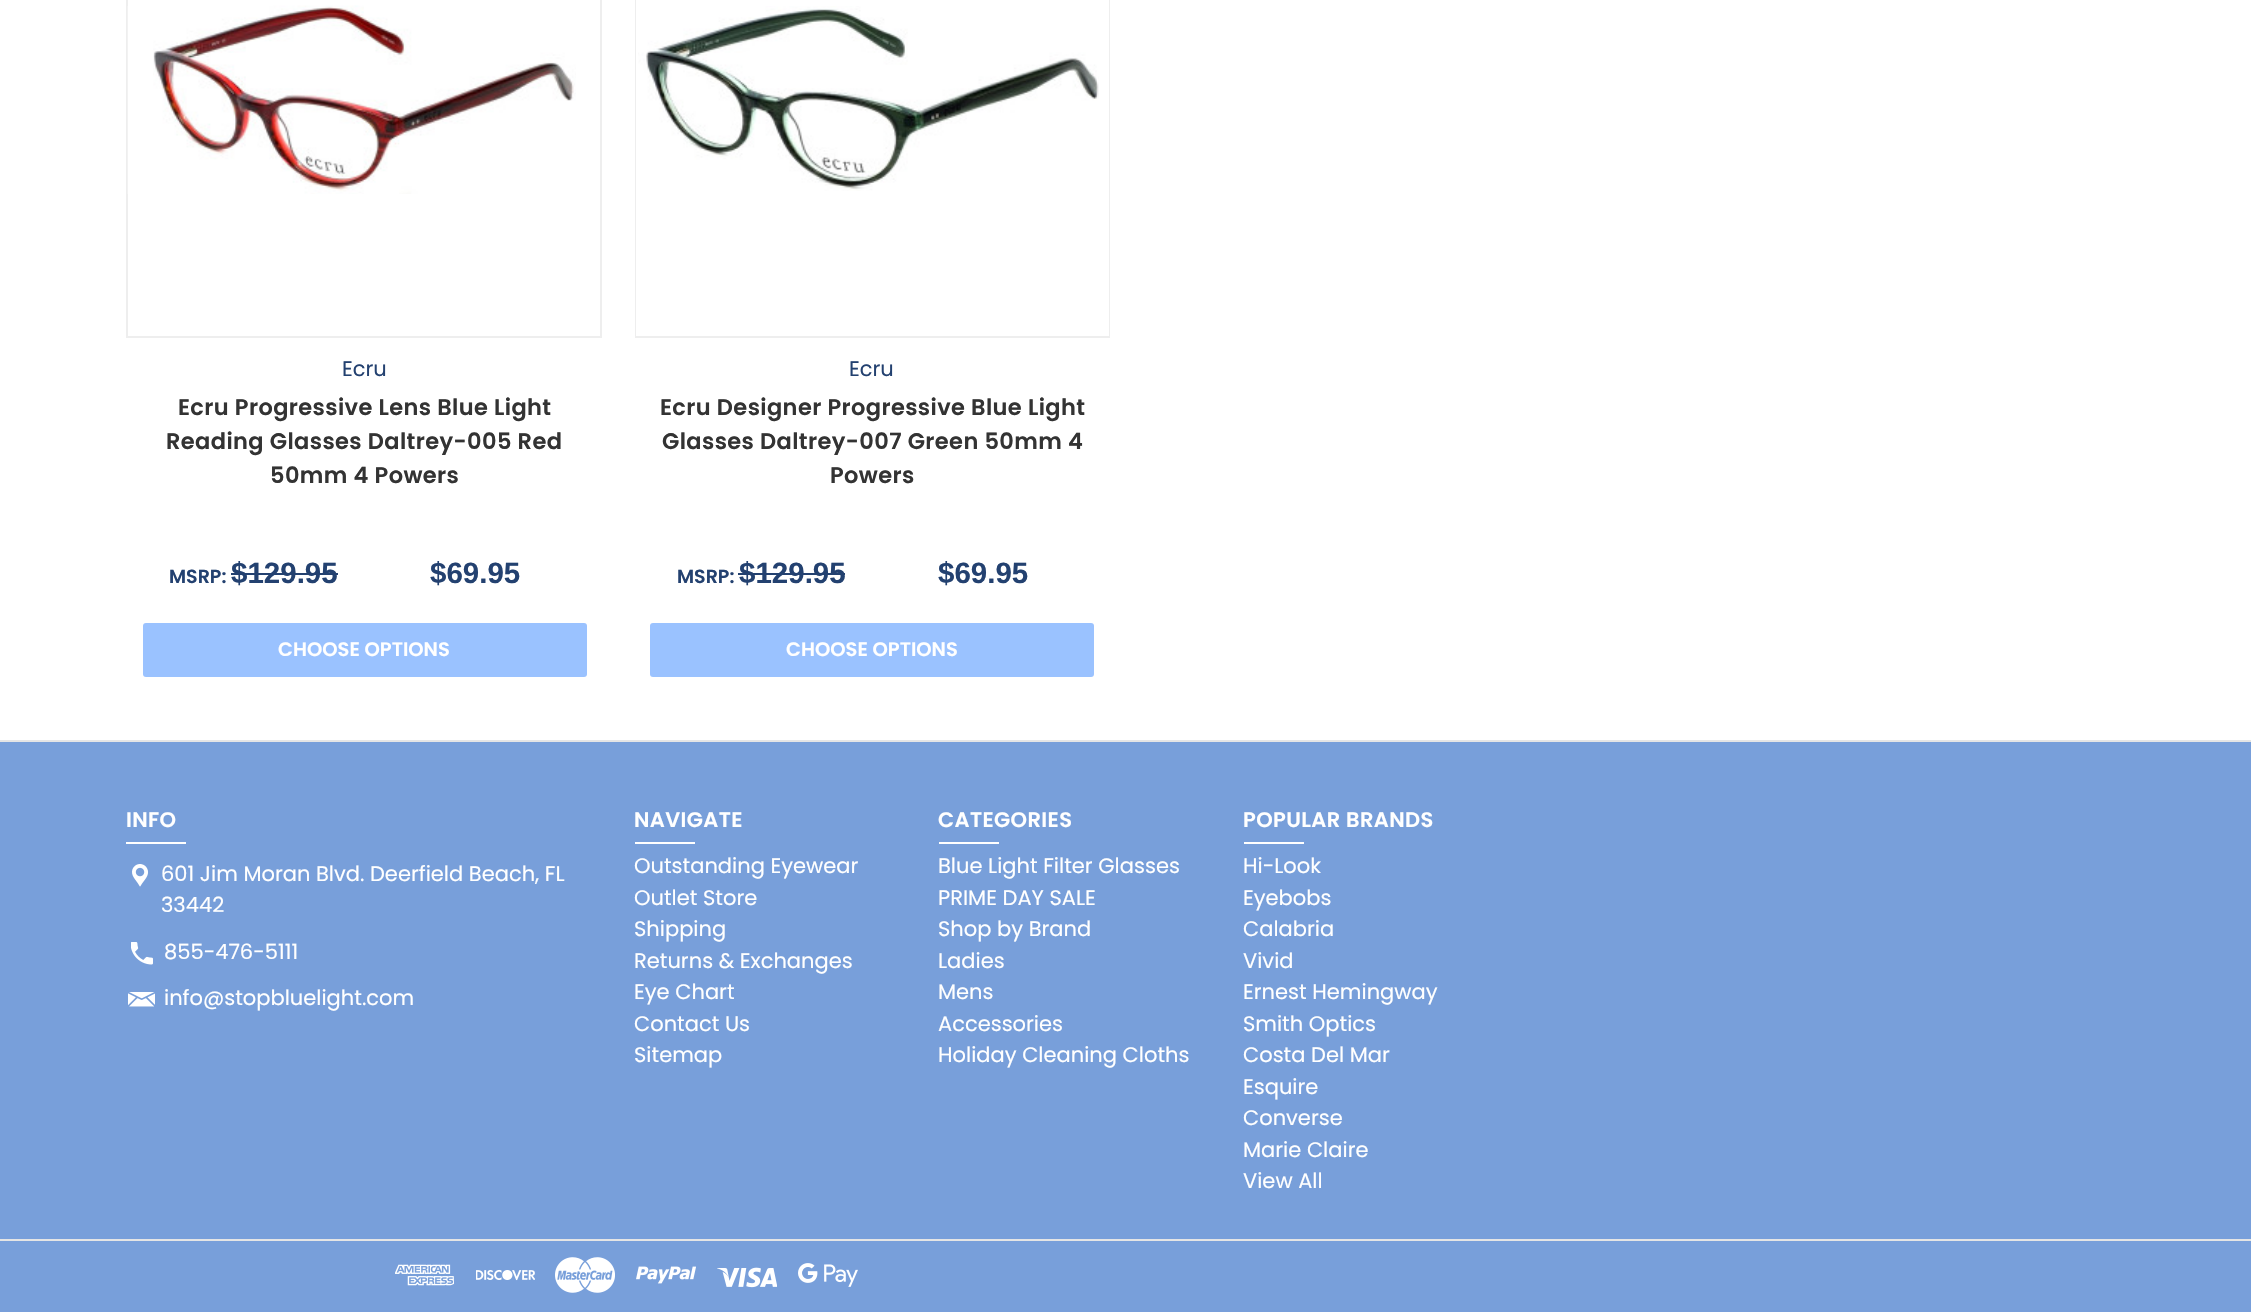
#include "include/core/SkBlurTypes.h"
#include "include/core/SkCanvas.h"
#include "include/core/SkData.h"
#include "include/core/SkFont.h"
#include "include/core/SkFontMgr.h"
#include "include/core/SkImage.h"
#include "include/core/SkMaskFilter.h"
#include "include/core/SkPaint.h"
#include "include/core/SkPathBuilder.h"
#include "include/core/SkTextBlob.h"
#include "include/effects/SkDashPathEffect.h"
#include "include/effects/SkGradientShader.h"
#include "include/utils/SkParsePath.h"

extern sk_sp<SkFontMgr> fontMgr;

void draw(SkCanvas* canvas) {
  SkPaint p;
  p.setAntiAlias(true);
  auto spacedText = [&](const char* s, float x, float y, const SkFont& font, const SkPaint& ink, float letter, float word) {
    std::vector<SkGlyphID> glyphs(font.countText(s, strlen(s), SkTextEncoding::kUTF8));
    std::vector<float> xs(glyphs.size());
    font.textToGlyphs(s, strlen(s), SkTextEncoding::kUTF8, glyphs);
    font.getXPos(glyphs, xs, x);
    float extra = 0;
    for (size_t i = 0; i < glyphs.size(); i++) {
      xs[i] += extra;
      extra += letter + word * (glyphs[i] == font.unicharToGlyph(' '));
    }
    canvas->drawTextBlob(SkTextBlob::MakeFromPosHGlyphs(glyphs, xs, y, font), 0, 0, ink);
  };
  canvas->clear(SK_ColorWHITE);
  p.setStyle(SkPaint::kStroke_Style);
  p.setStrokeWidth(2);
  p.setColor(SkColorSetRGB(238, 238, 238));
  canvas->drawRect(SkRect::MakeLTRB(127, -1, 601, 337), p);
  canvas->drawImageRect(SkImages::DeferredFromEncodedData(SkData::MakeFromFileName("images/1.png")), SkRect::MakeLTRB(127, 6, 128, 194), SkSamplingOptions());
  canvas->drawImageRect(SkImages::DeferredFromEncodedData(SkData::MakeFromFileName("images/2.png")), SkRect::MakeLTRB(153, 5, 576, 194), SkSamplingOptions());
  p.setStyle(SkPaint::kFill_Style);
  p.setColor(SkColorSetRGB(35, 65, 112));
  canvas->drawRect(SkRect::MakeLTRB(231, 573, 338, 575), p);
  p.setColor(SkColorSetRGB(154, 194, 255));
  canvas->drawRoundRect(SkRect::MakeLTRB(143, 623, 587, 677), 3, 3, p);
  p.setStyle(SkPaint::kStroke_Style);
  p.setColor(SkColorSetRGB(238, 238, 238));
  canvas->drawRect(SkRect::MakeLTRB(636, -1, 1109, 337), p);
  p.setStyle(SkPaint::kFill_Style);
  p.setColor(SK_ColorWHITE);
  canvas->drawRect(SkRect::MakeLTRB(636, 0, 1109, 336), p);
  canvas->drawImageRect(SkImages::DeferredFromEncodedData(SkData::MakeFromFileName("images/3.png")), SkRect::MakeLTRB(638, 6, 1099, 191), SkSamplingOptions());
  p.setColor(SkColorSetRGB(35, 65, 112));
  canvas->drawRect(SkRect::MakeLTRB(738, 573, 845, 575), p);
  p.setColor(SkColorSetRGB(154, 194, 255));
  canvas->drawRoundRect(SkRect::MakeLTRB(650, 623, 1094, 677), 3, 3, p);
  p.setColor(SkColorSetRGB(120, 159, 218));
  canvas->drawRect(SkRect::MakeLTRB(0, 742, 2251, 1312), p);
  p.setColor(SkColorSetRGB(229, 229, 229));
  canvas->drawRect(SkRect::MakeLTRB(0, 740, 2251, 742), p);
  p.setColor(SK_ColorWHITE);
  canvas->drawRect(SkRect::MakeLTRB(126, 842, 186, 844), p);
  canvas->drawImageRect(SkImages::DeferredFromEncodedData(SkData::MakeFromFileName("images/4.png")), SkRect::MakeLTRB(132, 864, 148, 887), SkSamplingOptions());
  canvas->drawImageRect(SkImages::DeferredFromEncodedData(SkData::MakeFromFileName("images/5.png")), SkRect::MakeLTRB(131, 942, 153, 965), SkSamplingOptions());
  canvas->drawImageRect(SkImages::DeferredFromEncodedData(SkData::MakeFromFileName("images/6.png")), SkRect::MakeLTRB(128, 992, 155, 1007), SkSamplingOptions());
  canvas->drawRect(SkRect::MakeLTRB(635, 842, 695, 844), p);
  canvas->drawRect(SkRect::MakeLTRB(939, 842, 999, 844), p);
  canvas->drawRect(SkRect::MakeLTRB(1244, 842, 1304, 844), p);
  p.setColor(SkColorSetRGB(229, 229, 229));
  canvas->drawRect(SkRect::MakeLTRB(0, 1239, 2251, 1241), p);
  canvas->drawImageRect(SkImages::DeferredFromEncodedData(SkData::MakeFromFileName("images/7.png")), SkRect::MakeLTRB(395, 1264, 454, 1286), SkSamplingOptions());
  canvas->drawImageRect(SkImages::DeferredFromEncodedData(SkData::MakeFromFileName("images/8.png")), SkRect::MakeLTRB(476, 1269, 535, 1281), SkSamplingOptions());
  canvas->drawImageRect(SkImages::DeferredFromEncodedData(SkData::MakeFromFileName("images/9.png")), SkRect::MakeLTRB(555, 1257, 615, 1293), SkSamplingOptions());
  canvas->drawImageRect(SkImages::DeferredFromEncodedData(SkData::MakeFromFileName("images/10.png")), SkRect::MakeLTRB(636, 1266, 696, 1284), SkSamplingOptions());
  canvas->drawImageRect(SkImages::DeferredFromEncodedData(SkData::MakeFromFileName("images/11.png")), SkRect::MakeLTRB(717, 1267, 777, 1288), SkSamplingOptions());
  canvas->drawImageRect(SkImages::DeferredFromEncodedData(SkData::MakeFromFileName("images/12.png")), SkRect::MakeLTRB(798, 1263, 858, 1287), SkSamplingOptions());
  SkFont font1(fontMgr->matchFamilyStyle("Poppins", SkFontStyle::Normal()), 21);
  font1.setSubpixel(true);
  p.setColor(SkColorSetRGB(35, 65, 112));
  canvas->drawString("Ecru", 342, 376, font1, p);
  SkFont font2(fontMgr->matchFamilyStyle("Poppins", SkFontStyle(600, SkFontStyle::kNormal_Width, SkFontStyle::kUpright_Slant)), 22.5f);
  font2.setSubpixel(true);
  p.setColor(SkColorSetRGB(51, 51, 51));
  spacedText("Ecru Progressive Lens Blue Light", 178, 415, font2, p, 0.4f, 0);
  spacedText("Reading Glasses Daltrey-005 Red", 166, 449, font2, p, 0.4f, 0);
  spacedText("50mm 4 Powers", 270, 483, font2, p, 0.4f, 0);
  SkFont font3(fontMgr->matchFamilyStyle("Poppins", SkFontStyle(600, SkFontStyle::kNormal_Width, SkFontStyle::kUpright_Slant)), 19);
  font3.setSubpixel(true);
  p.setColor(SkColorSetRGB(35, 65, 112));
  canvas->drawString("MSRP:", 169, 583, font3, p);
  SkFont font4(fontMgr->matchFamilyStyle("Liberation Sans", SkFontStyle::Bold()), 29.5f);
  font4.setSubpixel(true);
  canvas->drawString("$129.95", 231, 583, font4, p);
  canvas->drawString("$69.95", 430, 583, font4, p);
  SkFont font5(fontMgr->matchFamilyStyle("Poppins", SkFontStyle(600, SkFontStyle::kNormal_Width, SkFontStyle::kUpright_Slant)), 19.5f);
  font5.setSubpixel(true);
  p.setColor(SK_ColorWHITE);
  canvas->drawString("CHOOSE OPTIONS", 278, 656, font5, p);
  p.setColor(SkColorSetRGB(35, 65, 112));
  canvas->drawString("Ecru", 849, 376, font1, p);
  p.setColor(SkColorSetRGB(51, 51, 51));
  spacedText("Ecru Designer Progressive Blue Light", 660, 415, font2, p, 0.4f, 0);
  spacedText("Glasses Daltrey-007 Green 50mm 4", 662, 449, font2, p, 0.4f, 0);
  spacedText("Powers", 830, 483, font2, p, 0.4f, 0);
  p.setColor(SkColorSetRGB(35, 65, 112));
  canvas->drawString("MSRP:", 677, 583, font3, p);
  canvas->drawString("$129.95", 739, 583, font4, p);
  canvas->drawString("$69.95", 938, 583, font4, p);
  p.setColor(SK_ColorWHITE);
  canvas->drawString("CHOOSE OPTIONS", 786, 656, font5, p);
  SkFont font6(fontMgr->matchFamilyStyle("Poppins", SkFontStyle(600, SkFontStyle::kNormal_Width, SkFontStyle::kUpright_Slant)), 21);
  font6.setSubpixel(true);
  spacedText("INFO", 126, 827, font6, p, 0.4f, 0);
  canvas->drawString("601 Jim Moran Blvd. Deerfield Beach, FL", 161, 881, font1, p);
  canvas->drawString("33442", 161, 912, font1, p);
  canvas->drawString("855-476-5111", 164, 959, font1, p);
  canvas->drawString("info@stopbluelight.com", 164, 1005, font1, p);
  spacedText("NAVIGATE", 634, 827, font6, p, 0.4f, 0);
  canvas->drawString("Outstanding Eyewear", 634, 873, font1, p);
  canvas->drawString("Outlet Store", 634, 905, font1, p);
  canvas->drawString("Shipping", 634, 936, font1, p);
  canvas->drawString("Returns & Exchanges", 634, 968, font1, p);
  canvas->drawString("Eye Chart", 634, 999, font1, p);
  canvas->drawString("Contact Us", 634, 1031, font1, p);
  canvas->drawString("Sitemap", 634, 1062, font1, p);
  spacedText("CATEGORIES", 938, 827, font6, p, 0.4f, 0);
  canvas->drawString("Blue Light Filter Glasses", 938, 873, font1, p);
  canvas->drawString("PRIME DAY SALE", 938, 905, font1, p);
  canvas->drawString("Shop by Brand", 938, 936, font1, p);
  canvas->drawString("Ladies", 938, 968, font1, p);
  canvas->drawString("Mens", 938, 999, font1, p);
  canvas->drawString("Accessories", 938, 1031, font1, p);
  canvas->drawString("Holiday Cleaning Cloths", 938, 1062, font1, p);
  spacedText("POPULAR BRANDS", 1243, 827, font6, p, 0.4f, 0);
  canvas->drawString("Hi-Look", 1243, 873, font1, p);
  canvas->drawString("Eyebobs", 1243, 905, font1, p);
  canvas->drawString("Calabria", 1243, 936, font1, p);
  canvas->drawString("Vivid", 1243, 968, font1, p);
  canvas->drawString("Ernest Hemingway", 1243, 999, font1, p);
  canvas->drawString("Smith Optics", 1243, 1031, font1, p);
  canvas->drawString("Costa Del Mar", 1243, 1062, font1, p);
  canvas->drawString("Esquire", 1243, 1094, font1, p);
  canvas->drawString("Converse", 1243, 1125, font1, p);
  canvas->drawString("Marie Claire", 1243, 1157, font1, p);
  canvas->drawString("View All", 1243, 1188, font1, p);
}
